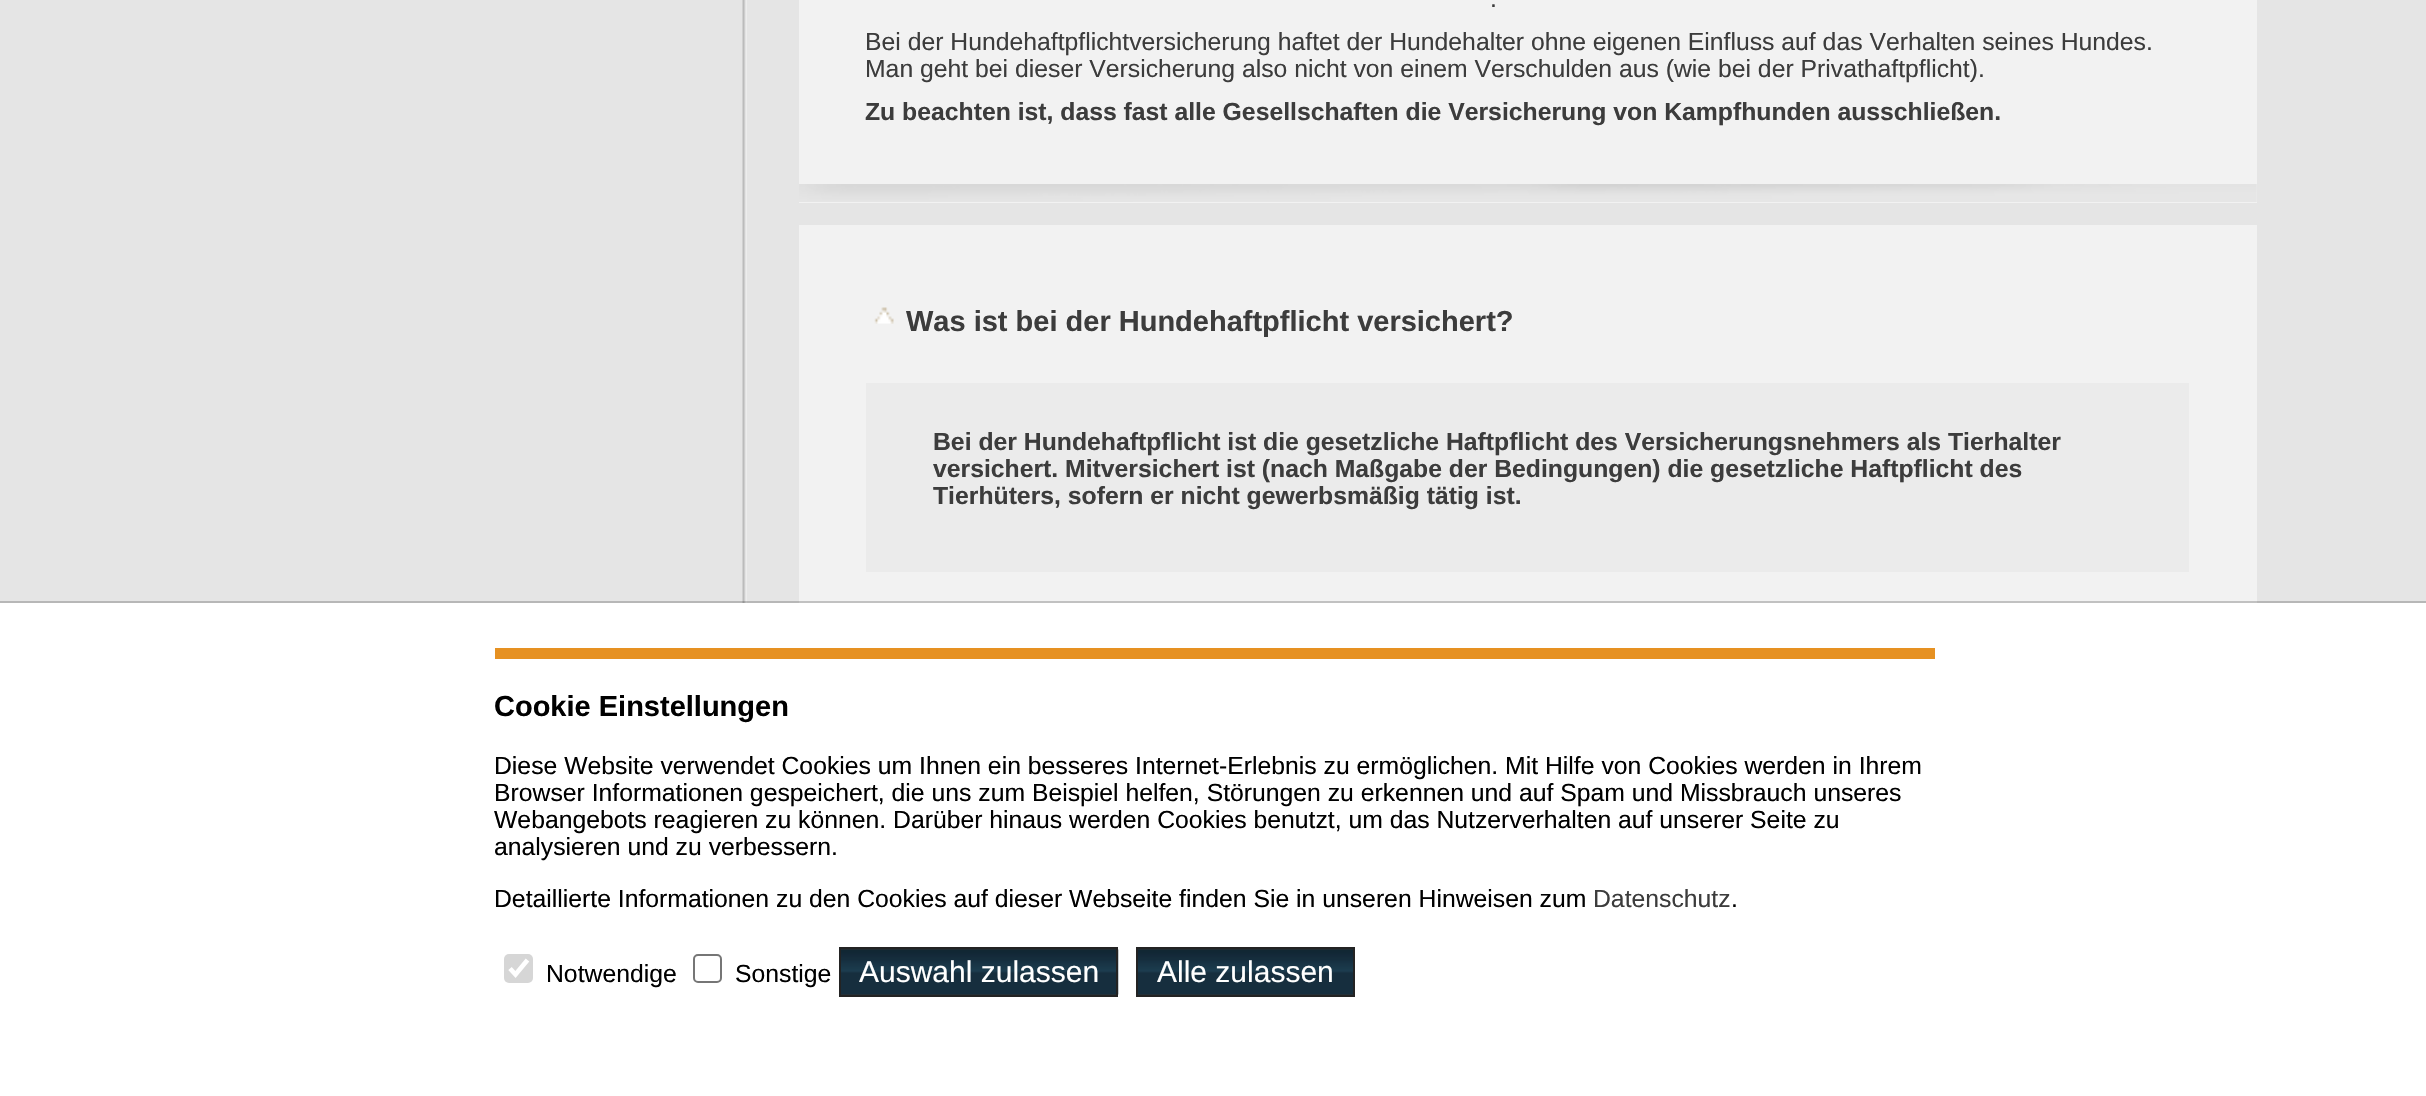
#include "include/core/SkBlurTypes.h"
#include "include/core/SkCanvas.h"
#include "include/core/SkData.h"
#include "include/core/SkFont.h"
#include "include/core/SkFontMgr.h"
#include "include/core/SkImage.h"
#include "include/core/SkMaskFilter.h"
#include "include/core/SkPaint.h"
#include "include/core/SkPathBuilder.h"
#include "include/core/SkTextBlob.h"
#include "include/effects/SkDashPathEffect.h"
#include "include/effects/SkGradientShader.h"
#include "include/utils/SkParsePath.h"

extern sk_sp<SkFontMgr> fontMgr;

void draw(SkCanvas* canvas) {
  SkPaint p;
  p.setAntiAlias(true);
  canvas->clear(SkColorSetRGB(229, 229, 229));
  canvas->drawImageRect(SkImages::DeferredFromEncodedData(SkData::MakeFromFileName("images/1.png")), SkRect::MakeLTRB(742, 0, 747, 603), SkSamplingOptions());
  p.setColor(SkColorSetRGB(242, 242, 242));
  canvas->drawRect(SkRect::MakeLTRB(799, 0, 2257, 203), p);
  canvas->drawImageRect(SkImages::DeferredFromEncodedData(SkData::MakeFromFileName("images/2.png")), SkRect::MakeLTRB(799, 184, 2257, 202), SkSamplingOptions());
  canvas->drawRect(SkRect::MakeLTRB(799, 225, 2257, 603), p);
  canvas->drawImageRect(SkImages::DeferredFromEncodedData(SkData::MakeFromFileName("images/3.png")), SkRect::MakeLTRB(874, 307, 894, 324), SkSamplingOptions());
  p.setColor(SkColorSetRGB(235, 235, 235));
  canvas->drawRect(SkRect::MakeLTRB(866, 383, 2189, 572), p);
  p.setStyle(SkPaint::kStroke_Style);
  p.setStrokeWidth(2);
  p.setColor(SkColorSetARGB(51, 0, 0, 0));
  canvas->drawRect(SkRect::MakeLTRB(-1, 602, 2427, 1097), p);
  p.setStyle(SkPaint::kFill_Style);
  p.setColor(SK_ColorWHITE);
  canvas->drawRect(SkRect::MakeLTRB(0, 603, 2426, 1096), p);
  p.setColor(SkColorSetRGB(230, 145, 34));
  canvas->drawRect(SkRect::MakeLTRB(495, 648, 1935, 659), p);
  p.setColor(SkColorSetRGB(214, 214, 214));
  canvas->drawRoundRect(SkRect::MakeLTRB(504, 954, 533, 983), 5, 5, p);
  p.setStyle(SkPaint::kStroke_Style);
  p.setStrokeWidth(4.7f);
  p.setColor(SK_ColorWHITE);
  canvas->drawPath(SkPathBuilder().moveTo(510, 968.5f).lineTo(515.5f, 974.5f).lineTo(527.5f, 960).detach(), p);
  p.setStrokeWidth(2);
  p.setColor(SkColorSetRGB(118, 118, 118));
  canvas->drawRoundRect(SkRect::MakeLTRB(694, 955, 721, 982), 4, 4, p);
  p.setStyle(SkPaint::kFill_Style);
  p.setColor(SkColorSetRGB(48, 48, 48));
  canvas->drawRect(SkRect::MakeLTRB(841, 949, 1116, 995), p);
  canvas->drawImageRect(SkImages::DeferredFromEncodedData(SkData::MakeFromFileName("images/4.png")), SkRect::MakeLTRB(841, 949, 1119, 995), SkSamplingOptions());
  p.setStyle(SkPaint::kStroke_Style);
  p.setColor(SkColorSetRGB(35, 35, 35));
  canvas->drawRect(SkRect::MakeLTRB(840, 948, 1117, 996), p);
  p.setStyle(SkPaint::kFill_Style);
  p.setColor(SkColorSetRGB(48, 48, 48));
  canvas->drawRect(SkRect::MakeLTRB(1138, 949, 1353, 995), p);
  canvas->drawImageRect(SkImages::DeferredFromEncodedData(SkData::MakeFromFileName("images/5.png")), SkRect::MakeLTRB(1138, 949, 1353, 995), SkSamplingOptions());
  p.setStyle(SkPaint::kStroke_Style);
  p.setColor(SkColorSetRGB(35, 35, 35));
  canvas->drawRect(SkRect::MakeLTRB(1137, 948, 1354, 996), p);
  SkFont font1(fontMgr->matchFamilyStyle("Liberation Sans", SkFontStyle::Normal()), 24.75f);
  font1.setSubpixel(true);
  p.setStyle(SkPaint::kFill_Style);
  p.setColor(SkColorSetRGB(60, 60, 60));
  canvas->drawString(".", 1490, 7, font1, p);
  canvas->drawString("Bei der Hundehaftpflichtversicherung haftet der Hundehalter ohne eigenen Einfluss auf das Verhalten seines Hundes.", 865, 50, font1, p);
  canvas->drawString("Man geht bei dieser Versicherung also nicht von einem Verschulden aus (wie bei der Privathaftpflicht).", 865, 77, font1, p);
  SkFont font2(fontMgr->matchFamilyStyle("Liberation Sans", SkFontStyle::Bold()), 24.75f);
  font2.setSubpixel(true);
  canvas->drawString("Zu beachten ist, dass fast alle Gesellschaften die Versicherung von Kampfhunden ausschließen.", 865, 120, font2, p);
  SkFont font3(fontMgr->matchFamilyStyle("Liberation Sans", SkFontStyle::Bold()), 29);
  font3.setSubpixel(true);
  canvas->drawString("Was ist bei der Hundehaftpflicht versichert?", 906, 331, font3, p);
  canvas->drawString("Bei der Hundehaftpflicht ist die gesetzliche Haftpflicht des Versicherungsnehmers als Tierhalter", 933, 450, font2, p);
  canvas->drawString("versichert. Mitversichert ist (nach Maßgabe der Bedingungen) die gesetzliche Haftpflicht des", 933, 477, font2, p);
  canvas->drawString("Tierhüters, sofern er nicht gewerbsmäßig tätig ist.", 933, 504, font2, p);
  p.setColor(SK_ColorBLACK);
  canvas->drawString("Cookie Einstellungen", 494, 716, font3, p);
  canvas->drawString("Diese Website verwendet Cookies um Ihnen ein besseres Internet-Erlebnis zu ermöglichen. Mit Hilfe von Cookies werden in Ihrem", 494, 774, font1, p);
  canvas->drawString("Browser Informationen gespeichert, die uns zum Beispiel helfen, Störungen zu erkennen und auf Spam und Missbrauch unseres", 494, 801, font1, p);
  canvas->drawString("Webangebots reagieren zu können. Darüber hinaus werden Cookies benutzt, um das Nutzerverhalten auf unserer Seite zu", 494, 828, font1, p);
  canvas->drawString("analysieren und zu verbessern.", 494, 855, font1, p);
  canvas->drawString("Detaillierte Informationen zu den Cookies auf dieser Webseite finden Sie in unseren Hinweisen zum", 494, 907, font1, p);
  p.setColor(SkColorSetRGB(60, 60, 60));
  canvas->drawString("Datenschutz", 1593, 907, font1, p);
  p.setColor(SK_ColorBLACK);
  canvas->drawString(".", 1731, 907, font1, p);
  canvas->drawString("Notwendige", 546, 982, font1, p);
  canvas->drawString("Sonstige", 735, 982, font1, p);
  SkFont font4(fontMgr->matchFamilyStyle("Liberation Sans", SkFontStyle::Normal()), 30);
  font4.setSubpixel(true);
  p.setColor(SK_ColorWHITE);
  canvas->drawString("Auswahl zulassen", 859, 982, font4, p);
  canvas->drawString("Alle zulassen", 1157, 982, font4, p);
}
